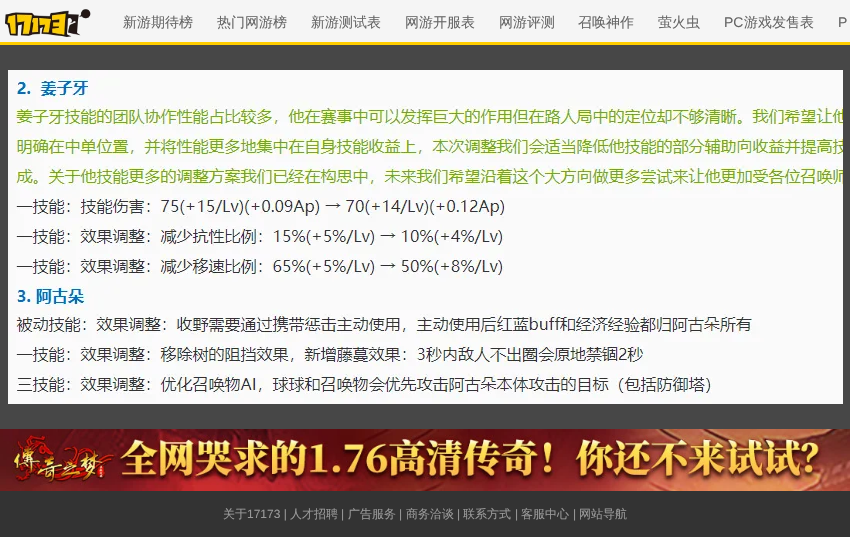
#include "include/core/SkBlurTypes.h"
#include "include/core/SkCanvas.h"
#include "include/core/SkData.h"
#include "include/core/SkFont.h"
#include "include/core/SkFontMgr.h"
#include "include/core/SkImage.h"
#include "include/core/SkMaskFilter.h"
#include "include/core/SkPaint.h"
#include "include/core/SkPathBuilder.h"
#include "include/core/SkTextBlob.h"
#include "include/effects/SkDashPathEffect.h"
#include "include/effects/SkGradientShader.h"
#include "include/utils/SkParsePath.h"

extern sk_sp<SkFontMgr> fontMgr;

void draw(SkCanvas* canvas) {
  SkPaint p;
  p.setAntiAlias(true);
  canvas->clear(SkColorSetRGB(71, 71, 71));
  p.setColor(SkColorSetRGB(245, 245, 245));
  canvas->drawRect(SkRect::MakeLTRB(0, 0, 850, 42), p);
  p.setColor(SkColorSetRGB(255, 205, 0));
  canvas->drawRect(SkRect::MakeLTRB(0, 42, 850, 45), p);
  canvas->drawImageRect(SkImages::DeferredFromEncodedData(SkData::MakeFromFileName("images/1.png")), SkRect::MakeLTRB(5, 9, 91, 37), SkSamplingOptions());
  canvas->drawImageRect(SkImages::DeferredFromEncodedData(SkData::MakeFromFileName("images/2.png")), SkRect::MakeLTRB(8, 70, 843, 404), SkSamplingOptions());
  canvas->drawImageRect(SkImages::DeferredFromEncodedData(SkData::MakeFromFileName("images/3.png")), SkRect::MakeLTRB(0, 429, 850, 491), SkSamplingOptions());
  p.setColor(SkColorSetRGB(51, 51, 51));
  canvas->drawRect(SkRect::MakeLTRB(0, 491, 850, 537), p);
  SkFont font1(fontMgr->matchFamilyStyle("WenQuanYi Zen Hei", SkFontStyle(500, SkFontStyle::kNormal_Width, SkFontStyle::kUpright_Slant)), 14);
  font1.setSubpixel(true);
  p.setColor(SkColorSetRGB(102, 102, 102));
  canvas->drawString("新游期待榜", 123, 27, font1, p);
  canvas->drawString("热门网游榜", 217, 27, font1, p);
  canvas->drawString("新游测试表", 311, 27, font1, p);
  canvas->drawString("网游开服表", 405, 27, font1, p);
  canvas->drawString("网游评测", 499, 27, font1, p);
  canvas->drawString("召唤神作", 578, 27, font1, p);
  canvas->drawString("萤火虫", 658, 27, font1, p);
  SkFont font2(fontMgr->matchFamilyStyle("Liberation Sans", SkFontStyle::Normal()), 14);
  font2.setSubpixel(true);
  canvas->drawString("PC", 724, 27, font2, p);
  canvas->drawString("游戏发售表", 744, 27, font1, p);
  canvas->drawString("P", 838, 27, font2, p);
  SkFont font3(fontMgr->matchFamilyStyle("WenQuanYi Zen Hei", SkFontStyle(500, SkFontStyle::kNormal_Width, SkFontStyle::kUpright_Slant)), 12);
  font3.setSubpixel(true);
  p.setColor(SkColorSetRGB(153, 153, 153));
  canvas->drawString("关于", 223, 518, font3, p);
  SkFont font4(fontMgr->matchFamilyStyle("Liberation Sans", SkFontStyle::Normal()), 12);
  font4.setSubpixel(true);
  canvas->drawString("17173 |", 247, 518, font4, p);
  canvas->drawString("人才招聘", 290, 518, font3, p);
  canvas->drawString("|", 341, 518, font4, p);
  canvas->drawString("广告服务", 348, 518, font3, p);
  canvas->drawString("|", 399, 518, font4, p);
  canvas->drawString("商务洽谈", 406, 518, font3, p);
  canvas->drawString("|", 457, 518, font4, p);
  canvas->drawString("联系方式", 463, 518, font3, p);
  canvas->drawString("|", 515, 518, font4, p);
  canvas->drawString("客服中心", 521, 518, font3, p);
  canvas->drawString("|", 573, 518, font4, p);
  canvas->drawString("网站导航", 579, 518, font3, p);
}
